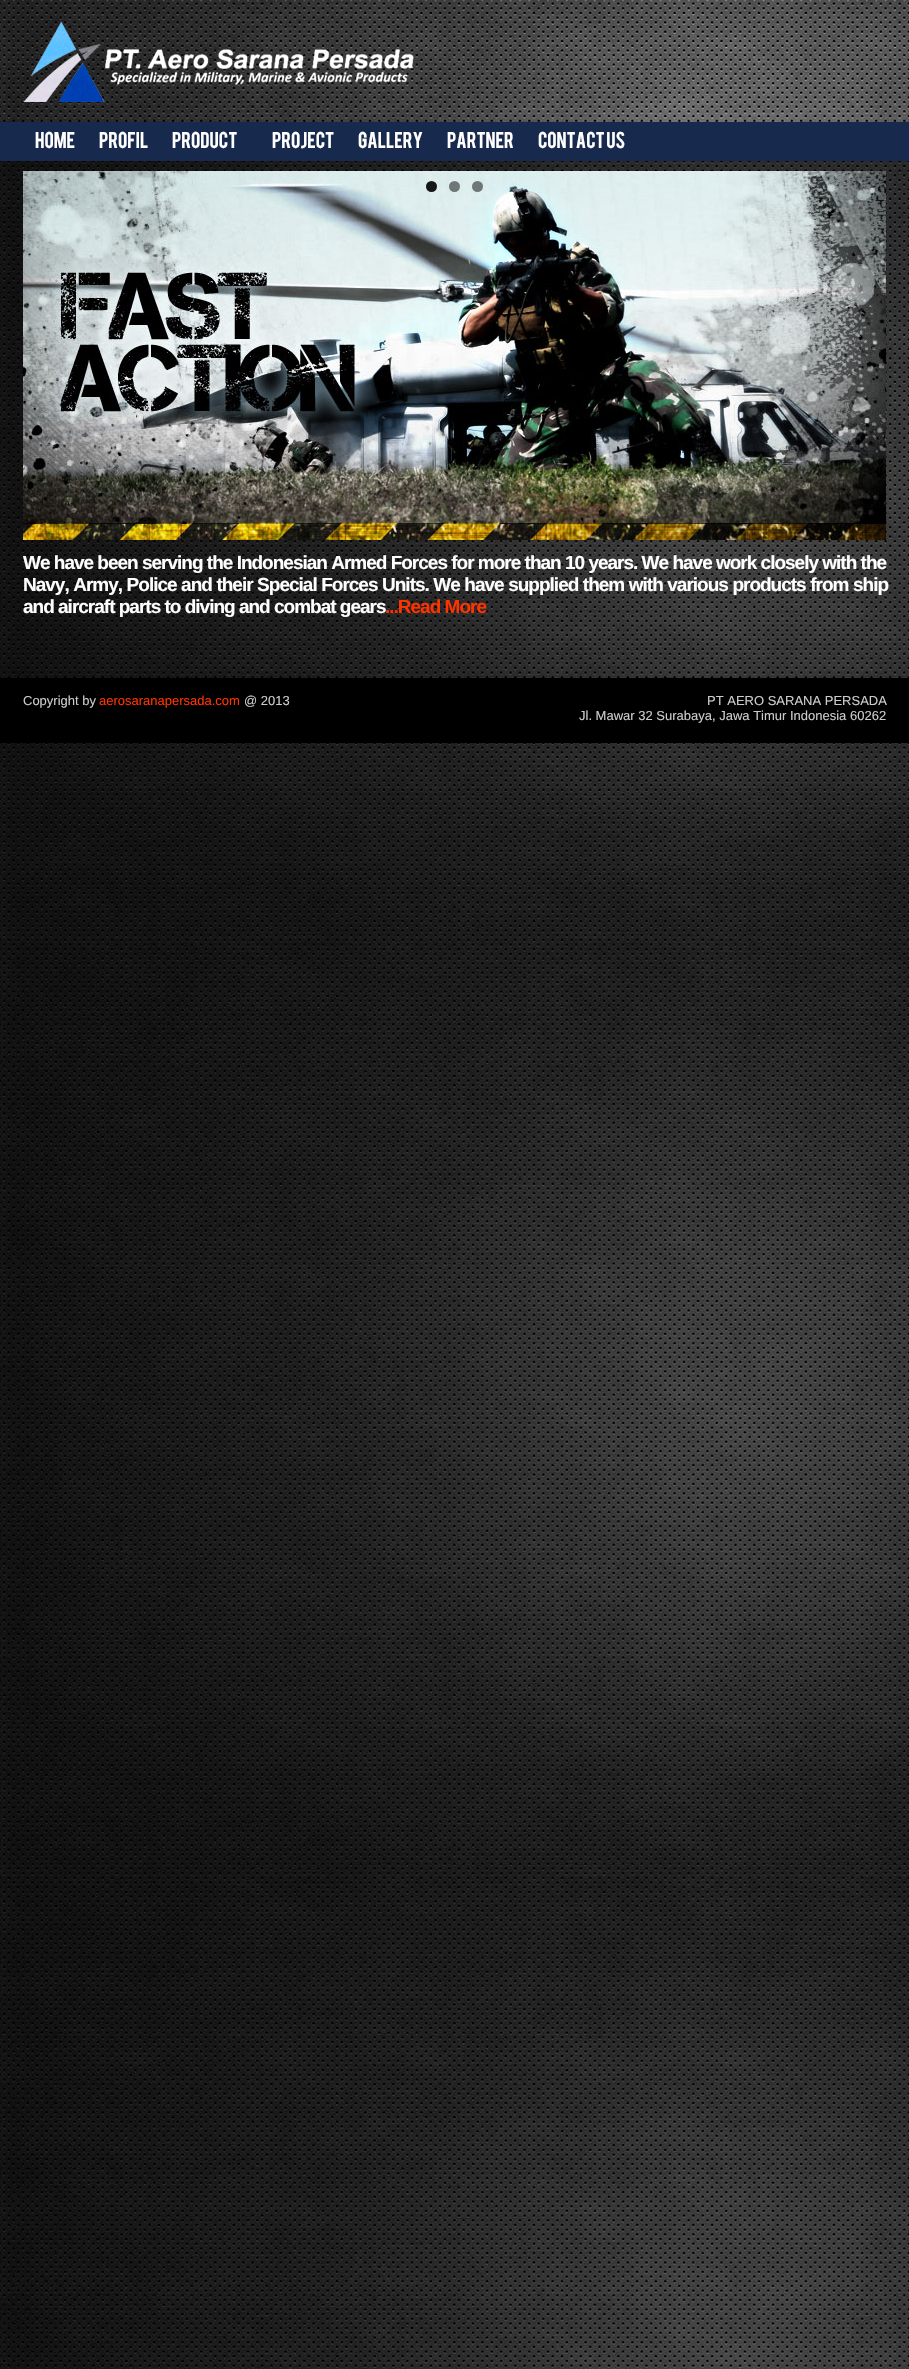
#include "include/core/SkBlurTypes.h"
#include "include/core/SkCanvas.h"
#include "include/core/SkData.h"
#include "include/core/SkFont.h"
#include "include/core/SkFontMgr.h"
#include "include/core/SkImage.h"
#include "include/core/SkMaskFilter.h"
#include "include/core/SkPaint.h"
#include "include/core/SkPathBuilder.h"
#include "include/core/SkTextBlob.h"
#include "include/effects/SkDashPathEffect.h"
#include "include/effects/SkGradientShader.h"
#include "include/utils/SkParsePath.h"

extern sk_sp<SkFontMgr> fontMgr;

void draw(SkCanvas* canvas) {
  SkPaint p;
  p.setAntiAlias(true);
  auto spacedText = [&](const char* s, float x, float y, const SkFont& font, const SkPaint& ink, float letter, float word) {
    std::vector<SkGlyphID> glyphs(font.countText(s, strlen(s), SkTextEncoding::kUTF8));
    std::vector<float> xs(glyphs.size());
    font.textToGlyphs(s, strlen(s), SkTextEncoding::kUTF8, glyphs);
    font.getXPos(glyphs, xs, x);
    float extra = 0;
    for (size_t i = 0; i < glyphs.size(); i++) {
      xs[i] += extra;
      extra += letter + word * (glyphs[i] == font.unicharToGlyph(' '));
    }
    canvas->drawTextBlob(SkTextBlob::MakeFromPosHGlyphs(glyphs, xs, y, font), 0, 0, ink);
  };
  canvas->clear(SK_ColorWHITE);
  canvas->drawImageRect(SkImages::DeferredFromEncodedData(SkData::MakeFromFileName("images/1.png")), SkRect::MakeLTRB(0, 161, 909, 2369), SkSamplingOptions());
  canvas->drawImageRect(SkImages::DeferredFromEncodedData(SkData::MakeFromFileName("images/2.png")), SkRect::MakeLTRB(0, 0, 909, 122), SkSamplingOptions());
  canvas->drawImageRect(SkImages::DeferredFromEncodedData(SkData::MakeFromFileName("images/3.png")), SkRect::MakeLTRB(23, 21, 414, 102), SkSamplingOptions());
  p.setColor(SkColorSetRGB(23, 41, 76));
  canvas->drawRect(SkRect::MakeLTRB(0, 122, 909, 161), p);
  canvas->drawImageRect(SkImages::DeferredFromEncodedData(SkData::MakeFromFileName("images/4.png")), SkRect::MakeLTRB(23, 171, 886, 540), SkSamplingOptions());
  p.setColor(SkColorSetARGB(230, 0, 0, 0));
  canvas->drawCircle(431.5f, 186.5f, 5.5f, p);
  p.setColor(SkColorSetARGB(128, 0, 0, 0));
  canvas->drawCircle(454.5f, 186.5f, 5.5f, p);
  canvas->drawCircle(477.5f, 186.5f, 5.5f, p);
  p.setColor(SK_ColorBLACK);
  canvas->drawRect(SkRect::MakeLTRB(0, 678, 909, 743), p);
  SkFont font1(fontMgr->matchFamilyStyle("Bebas", SkFontStyle::Normal()), 18);
  font1.setSubpixel(true);
  p.setColor(SK_ColorWHITE);
  canvas->drawString("HOME", 35, 148, font1, p);
  canvas->drawString("PROFIL", 99, 148, font1, p);
  canvas->drawString("PRODUCT", 172, 148, font1, p);
  canvas->drawString("PROJECT", 272, 148, font1, p);
  canvas->drawString("GALLERY", 358, 148, font1, p);
  canvas->drawString("PARTNER", 447, 148, font1, p);
  canvas->drawString("CONTACT US", 538, 148, font1, p);
  SkFont font2(fontMgr->matchFamilyStyle("Liberation Sans", SkFontStyle::Bold()), 19);
  font2.setSubpixel(true);
  spacedText("We have been serving the Indonesian Armed Forces for more than 10 years. We have work closely with the", 23, 569, font2, p, -1, 0);
  spacedText("Navy, Army, Police and their Special Forces Units. We have supplied them with various products from ship", 23, 591, font2, p, -1, 0.25f);
  spacedText("and aircraft parts to diving and combat gears", 23, 613, font2, p, -1, 0);
  p.setColor(SkColorSetRGB(255, 51, 0));
  spacedText("...Read More", 385, 613, font2, p, -1, 0);
  SkFont font3(fontMgr->matchFamilyStyle("Liberation Sans", SkFontStyle::Normal()), 13);
  font3.setSubpixel(true);
  p.setColor(SkColorSetRGB(204, 204, 204));
  canvas->drawString("Copyright by", 23, 705, font3, p);
  p.setColor(SkColorSetRGB(255, 51, 0));
  canvas->drawString("aerosaranapersada.com", 99, 705, font3, p);
  p.setColor(SkColorSetRGB(204, 204, 204));
  canvas->drawString("@ 2013", 244, 705, font3, p);
  canvas->drawString("PT AERO SARANA PERSADA", 707, 705, font3, p);
  canvas->drawString("Jl. Mawar 32 Surabaya, Jawa Timur Indonesia 60262", 579, 720, font3, p);
}
